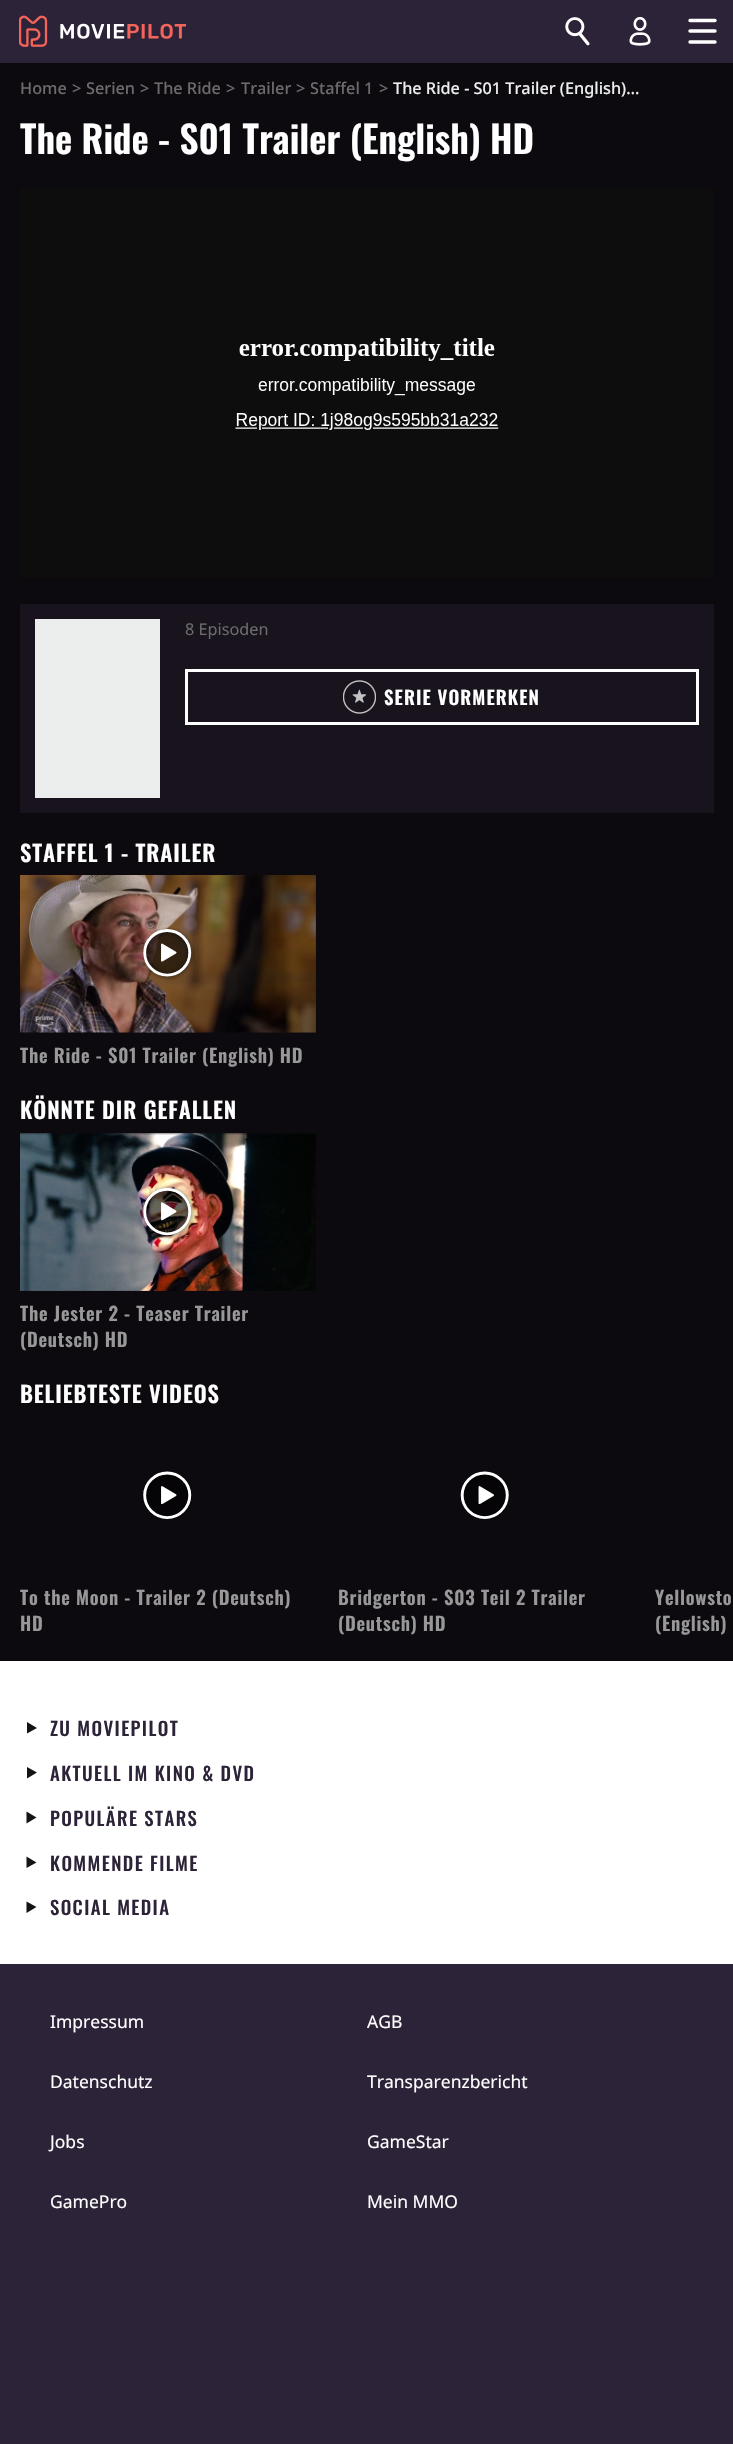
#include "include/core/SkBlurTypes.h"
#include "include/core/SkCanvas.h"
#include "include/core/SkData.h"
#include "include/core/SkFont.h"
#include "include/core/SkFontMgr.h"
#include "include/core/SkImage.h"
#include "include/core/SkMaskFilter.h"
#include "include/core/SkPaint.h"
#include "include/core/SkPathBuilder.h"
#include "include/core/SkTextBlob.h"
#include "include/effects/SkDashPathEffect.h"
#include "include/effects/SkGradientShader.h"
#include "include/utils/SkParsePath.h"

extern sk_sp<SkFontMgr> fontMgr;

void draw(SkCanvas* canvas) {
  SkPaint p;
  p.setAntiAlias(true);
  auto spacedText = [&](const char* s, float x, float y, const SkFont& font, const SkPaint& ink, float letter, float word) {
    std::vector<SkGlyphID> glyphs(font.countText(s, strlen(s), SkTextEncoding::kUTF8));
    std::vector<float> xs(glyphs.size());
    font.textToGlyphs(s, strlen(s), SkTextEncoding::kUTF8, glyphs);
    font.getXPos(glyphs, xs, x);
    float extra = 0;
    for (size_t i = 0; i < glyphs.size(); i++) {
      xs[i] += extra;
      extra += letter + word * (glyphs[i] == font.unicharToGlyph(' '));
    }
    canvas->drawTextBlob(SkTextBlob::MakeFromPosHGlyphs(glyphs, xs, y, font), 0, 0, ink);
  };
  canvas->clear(SkColorSetRGB(45, 35, 56));
  p.setColor(SkColorSetRGB(13, 10, 15));
  canvas->drawRect(SkRect::MakeLTRB(0, 63, 733, 1661), p);
  canvas->drawImageRect(SkImages::DeferredFromEncodedData(SkData::MakeFromFileName("images/1.png")), SkRect::MakeLTRB(19, 15, 186, 47), SkSamplingOptions());
  canvas->drawImageRect(SkImages::DeferredFromEncodedData(SkData::MakeFromFileName("images/2.png")), SkRect::MakeLTRB(565, 17, 590, 46), SkSamplingOptions());
  canvas->drawImageRect(SkImages::DeferredFromEncodedData(SkData::MakeFromFileName("images/3.png")), SkRect::MakeLTRB(629, 16, 651, 46), SkSamplingOptions());
  p.setStyle(SkPaint::kStroke_Style);
  p.setStrokeWidth(3.4f);
  p.setStrokeCap(SkPaint::kRound_Cap);
  p.setColor(SK_ColorWHITE);
  canvas->drawPath(SkPathBuilder().moveTo(690, 20.5f).lineTo(715, 20.5f).moveTo(690, 31).lineTo(715, 31).moveTo(715, 42).lineTo(690, 42).detach(), p);
  p.setStyle(SkPaint::kFill_Style);
  p.setColor(SkColorSetRGB(13, 13, 13));
  canvas->drawRect(SkRect::MakeLTRB(20, 188, 714, 578), p);
  canvas->drawImageRect(SkImages::DeferredFromEncodedData(SkData::MakeFromFileName("images/4.png")), SkRect::MakeLTRB(235, 338, 499, 430), SkSamplingOptions());
  p.setColor(SkColorSetRGB(24, 19, 28));
  canvas->drawRect(SkRect::MakeLTRB(20, 604, 714, 813), p);
  p.setColor(SkColorSetRGB(236, 237, 237));
  canvas->drawRect(SkRect::MakeLTRB(35, 619, 160, 798), p);
  p.setStyle(SkPaint::kStroke_Style);
  p.setStrokeWidth(3);
  p.setStrokeCap(SkPaint::kButt_Cap);
  p.setColor(SK_ColorWHITE);
  canvas->drawRect(SkRect::MakeLTRB(186.5f, 670.5f, 697.5f, 723.5f), p);
  canvas->drawImageRect(SkImages::DeferredFromEncodedData(SkData::MakeFromFileName("images/5.png")), SkRect::MakeLTRB(343, 680, 376, 714), SkSamplingOptions());
  canvas->drawImageRect(SkImages::DeferredFromEncodedData(SkData::MakeFromFileName("images/6.png")), SkRect::MakeLTRB(20, 875, 316, 1033), SkSamplingOptions());
  canvas->drawImageRect(SkImages::DeferredFromEncodedData(SkData::MakeFromFileName("images/7.png")), SkRect::MakeLTRB(140, 927, 195, 980), SkSamplingOptions());
  canvas->drawImageRect(SkImages::DeferredFromEncodedData(SkData::MakeFromFileName("images/8.png")), SkRect::MakeLTRB(20, 1133, 316, 1291), SkSamplingOptions());
  canvas->drawImageRect(SkImages::DeferredFromEncodedData(SkData::MakeFromFileName("images/9.png")), SkRect::MakeLTRB(141, 1185, 196, 1240), SkSamplingOptions());
  canvas->drawImageRect(SkImages::DeferredFromEncodedData(SkData::MakeFromFileName("images/10.png")), SkRect::MakeLTRB(143, 1471, 192, 1519), SkSamplingOptions());
  canvas->drawImageRect(SkImages::DeferredFromEncodedData(SkData::MakeFromFileName("images/11.png")), SkRect::MakeLTRB(460, 1471, 509, 1519), SkSamplingOptions());
  p.setStyle(SkPaint::kFill_Style);
  canvas->drawRect(SkRect::MakeLTRB(0, 1661, 733, 1964), p);
  p.setColor(SkColorSetRGB(20, 20, 20));
  canvas->drawPath(SkPathBuilder().moveTo(37, 1728).lineTo(27, 1722).lineTo(27, 1733.5f).close().moveTo(37, 1772.5f).lineTo(27, 1767).lineTo(27, 1778.5f).close().detach(), p);
  canvas->drawPath(SkPathBuilder().moveTo(36.5f, 1817.5f).lineTo(26.5f, 1811.5f).lineTo(26.5f, 1823.5f).close().moveTo(36.5f, 1862.5f).lineTo(26.5f, 1856.5f).lineTo(26.5f, 1868).close().detach(), p);
  canvas->drawPath(SkPathBuilder().moveTo(36.5f, 1907).lineTo(26.5f, 1901.5f).lineTo(26.5f, 1913).close().detach(), p);
  SkFont font1(fontMgr->matchFamilyStyle("Noto Sans", SkFontStyle(500, SkFontStyle::kNormal_Width, SkFontStyle::kUpright_Slant)), 16.25f);
  font1.setSubpixel(true);
  p.setColor(SkColorSetRGB(107, 107, 107));
  canvas->drawString("Home", 20, 94, font1, p);
  canvas->drawString(">", 72, 94, font1, p);
  canvas->drawString("Serien", 86, 94, font1, p);
  canvas->drawString(">", 140, 94, font1, p);
  canvas->drawString("The Ride", 154, 94, font1, p);
  canvas->drawString(">", 226, 94, font1, p);
  canvas->drawString("Trailer", 241, 94, font1, p);
  canvas->drawString(">", 296, 94, font1, p);
  canvas->drawString("Staffel 1", 310, 94, font1, p);
  canvas->drawString(">", 379, 94, font1, p);
  p.setColor(SkColorSetRGB(236, 237, 237));
  canvas->drawString("The Ride - S01 Trailer (English)…", 393, 94, font1, p);
  SkFont font2(fontMgr->matchFamilyStyle("Oswald", SkFontStyle(600, SkFontStyle::kNormal_Width, SkFontStyle::kUpright_Slant)), 37.5f);
  font2.setSubpixel(true);
  p.setColor(SK_ColorWHITE);
  canvas->drawString("The Ride - S01 Trailer (English) HD", 20, 154, font2, p);
  SkFont font3(fontMgr->matchFamilyStyle("Noto Sans", SkFontStyle::Normal()), 16.25f);
  font3.setSubpixel(true);
  p.setColor(SkColorSetRGB(107, 107, 107));
  canvas->drawString("8 Episoden", 185, 635, font3, p);
  SkFont font4(fontMgr->matchFamilyStyle("Oswald", SkFontStyle(600, SkFontStyle::kNormal_Width, SkFontStyle::kUpright_Slant)), 18.75f);
  font4.setSubpixel(true);
  p.setColor(SK_ColorWHITE);
  spacedText("SERIE VORMERKEN", 384, 705, font4, p, 1.1f, 0);
  SkFont font5(fontMgr->matchFamilyStyle("Oswald", SkFontStyle(600, SkFontStyle::kNormal_Width, SkFontStyle::kUpright_Slant)), 22.5f);
  font5.setSubpixel(true);
  spacedText("STAFFEL 1 - TRAILER", 20, 862, font5, p, 0.9f, 0);
  p.setColor(SkColorSetRGB(152, 152, 152));
  spacedText("The Ride - S01 Trailer (English) HD", 20, 1063, font4, p, 0.75f, 0);
  p.setColor(SK_ColorWHITE);
  spacedText("KÖNNTE DIR GEFALLEN", 20, 1119, font5, p, 0.9f, 0);
  p.setColor(SkColorSetRGB(152, 152, 152));
  spacedText("The Jester 2 - Teaser Trailer", 20, 1321, font4, p, 0.75f, 0);
  spacedText("(Deutsch) HD", 20, 1347, font4, p, 0.75f, 0);
  p.setColor(SK_ColorWHITE);
  spacedText("BELIEBTESTE VIDEOS", 20, 1403, font5, p, 0.9f, 0);
  p.setColor(SkColorSetRGB(152, 152, 152));
  spacedText("To the Moon - Trailer 2 (Deutsch)", 20, 1605, font4, p, 0.75f, 0);
  spacedText("HD", 20, 1631, font4, p, 0.75f, 0);
  spacedText("Bridgerton - S03 Teil 2 Trailer", 338, 1605, font4, p, 0.75f, 0);
  spacedText("(Deutsch) HD", 338, 1631, font4, p, 0.75f, 0);
  spacedText("Yellowsto", 655, 1605, font4, p, 0.75f, 0);
  spacedText("(English)", 655, 1631, font4, p, 0.75f, 0);
  SkFont font6(fontMgr->matchFamilyStyle("Oswald", SkFontStyle(500, SkFontStyle::kNormal_Width, SkFontStyle::kUpright_Slant)), 18.75f);
  font6.setSubpixel(true);
  p.setColor(SkColorSetRGB(45, 35, 56));
  spacedText("ZU MOVIEPILOT", 50, 1736, font6, p, 1.4f, 0);
  spacedText("AKTUELL IM KINO & DVD", 50, 1781, font6, p, 1.4f, 0);
  spacedText("POPULÄRE STARS", 50, 1826, font6, p, 1.4f, 0);
  spacedText("KOMMENDE FILME", 50, 1871, font6, p, 1.4f, 0);
  spacedText("SOCIAL MEDIA", 50, 1915, font6, p, 1.4f, 0);
  SkFont font7(fontMgr->matchFamilyStyle("Noto Sans", SkFontStyle::Normal()), 17.5f);
  font7.setSubpixel(true);
  p.setColor(SK_ColorWHITE);
  canvas->drawString("Impressum", 50, 2028, font7, p);
  canvas->drawString("AGB", 367, 2028, font7, p);
  canvas->drawString("Datenschutz", 50, 2088, font7, p);
  canvas->drawString("Transparenzbericht", 367, 2088, font7, p);
  canvas->drawString("Jobs", 50, 2148, font7, p);
  canvas->drawString("GameStar", 367, 2148, font7, p);
  canvas->drawString("GamePro", 50, 2208, font7, p);
  canvas->drawString("Mein MMO", 367, 2208, font7, p);
}
